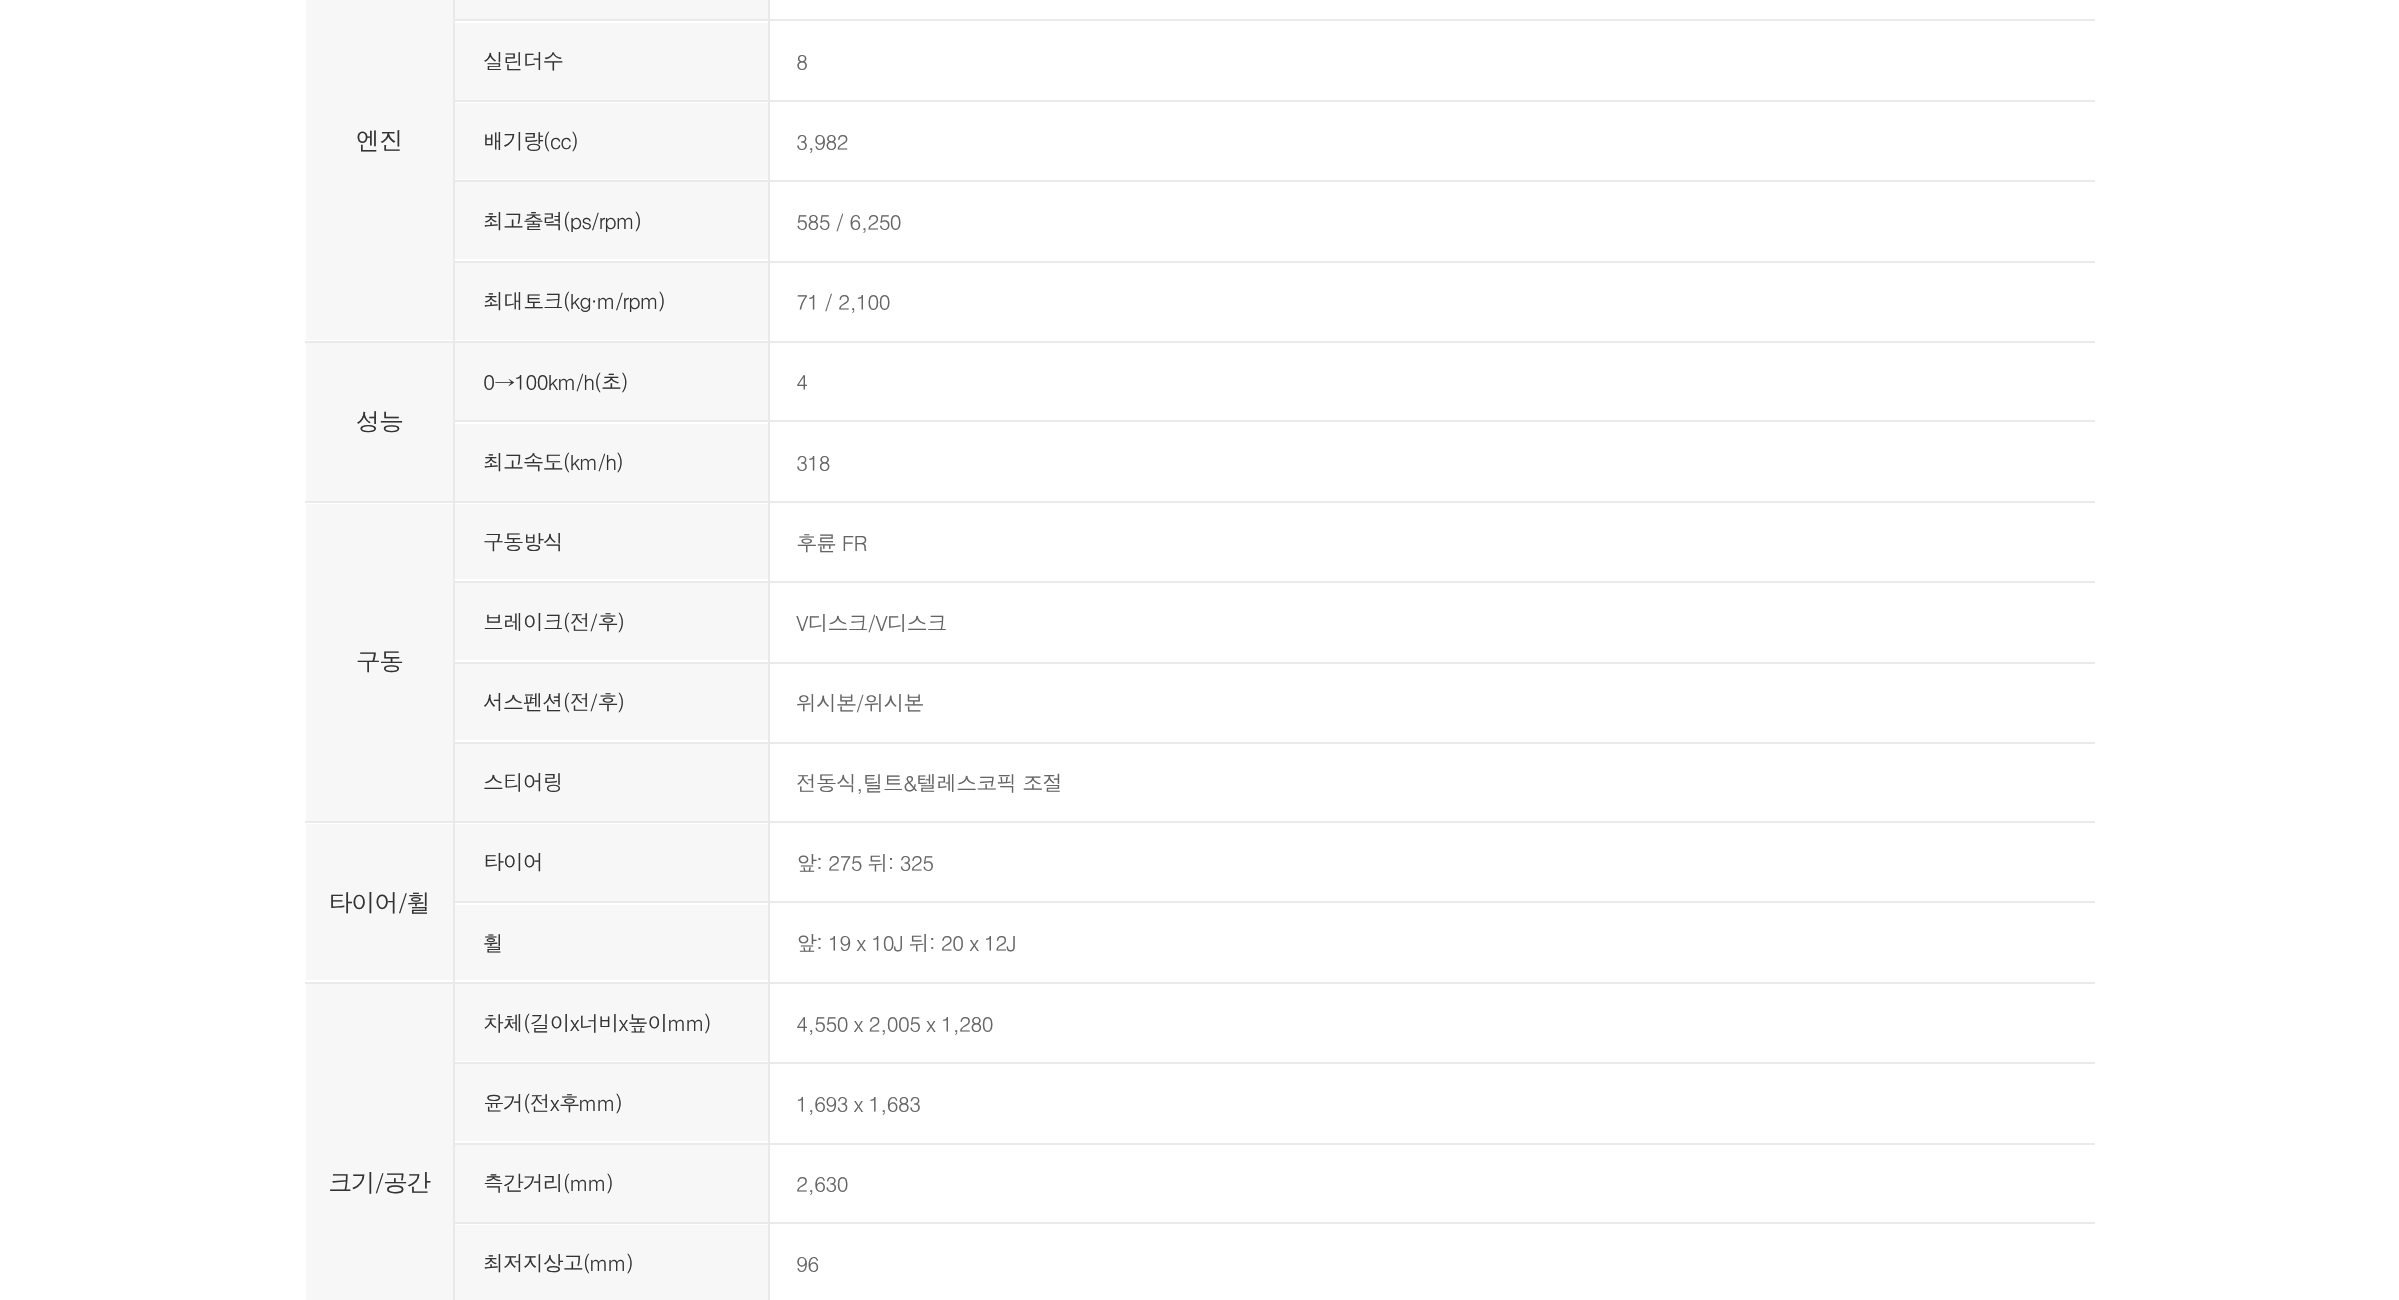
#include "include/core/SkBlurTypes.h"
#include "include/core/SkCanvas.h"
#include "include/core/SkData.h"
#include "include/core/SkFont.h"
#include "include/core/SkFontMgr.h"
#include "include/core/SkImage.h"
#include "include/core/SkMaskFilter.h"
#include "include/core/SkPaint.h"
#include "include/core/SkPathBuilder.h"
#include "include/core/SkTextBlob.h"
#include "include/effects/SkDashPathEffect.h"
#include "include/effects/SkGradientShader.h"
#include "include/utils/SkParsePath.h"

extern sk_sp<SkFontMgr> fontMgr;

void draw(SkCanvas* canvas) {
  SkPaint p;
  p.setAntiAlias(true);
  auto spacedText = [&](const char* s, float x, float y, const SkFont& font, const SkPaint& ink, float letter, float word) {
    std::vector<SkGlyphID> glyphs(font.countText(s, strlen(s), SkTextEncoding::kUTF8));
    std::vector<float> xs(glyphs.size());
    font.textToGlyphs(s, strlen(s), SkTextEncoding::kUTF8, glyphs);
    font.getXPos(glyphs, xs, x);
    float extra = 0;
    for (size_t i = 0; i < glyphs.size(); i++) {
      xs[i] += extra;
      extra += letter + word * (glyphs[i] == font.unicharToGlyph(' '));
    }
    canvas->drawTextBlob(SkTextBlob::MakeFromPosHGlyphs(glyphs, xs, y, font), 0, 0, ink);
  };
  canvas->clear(SK_ColorWHITE);
  p.setColor(SkColorSetRGB(247, 247, 247));
  canvas->drawRect(SkRect::MakeLTRB(455, 23, 768, 100), p);
  p.setColor(SkColorSetRGB(234, 234, 234));
  canvas->drawRect(SkRect::MakeLTRB(453, 19, 2095, 21), p);
  canvas->drawRect(SkRect::MakeLTRB(453, 100, 2095, 102), p);
  canvas->drawRect(SkRect::MakeLTRB(453, 180, 2095, 182), p);
  canvas->drawRect(SkRect::MakeLTRB(453, 261, 2095, 263), p);
  canvas->drawRect(SkRect::MakeLTRB(305, 341, 2095, 343), p);
  canvas->drawRect(SkRect::MakeLTRB(453, 420, 2095, 422), p);
  canvas->drawRect(SkRect::MakeLTRB(305, 501, 2095, 503), p);
  canvas->drawRect(SkRect::MakeLTRB(453, 581, 2095, 583), p);
  canvas->drawRect(SkRect::MakeLTRB(453, 662, 2095, 664), p);
  canvas->drawRect(SkRect::MakeLTRB(453, 742, 2095, 744), p);
  canvas->drawRect(SkRect::MakeLTRB(305, 821, 2095, 823), p);
  canvas->drawRect(SkRect::MakeLTRB(453, 901, 2095, 903), p);
  canvas->drawRect(SkRect::MakeLTRB(305, 982, 2095, 984), p);
  canvas->drawRect(SkRect::MakeLTRB(453, 1062, 2095, 1064), p);
  canvas->drawRect(SkRect::MakeLTRB(453, 1143, 2095, 1145), p);
  canvas->drawRect(SkRect::MakeLTRB(453, 1222, 2095, 1224), p);
  p.setColor(SkColorSetRGB(233, 233, 233));
  canvas->drawRect(SkRect::MakeLTRB(768, 1222, 770, 1300), p);
  canvas->drawRect(SkRect::MakeLTRB(768, 1143, 770, 1223), p);
  canvas->drawRect(SkRect::MakeLTRB(768, 1062, 770, 1145), p);
  canvas->drawRect(SkRect::MakeLTRB(768, 982, 770, 1064), p);
  canvas->drawRect(SkRect::MakeLTRB(768, 901, 770, 984), p);
  canvas->drawRect(SkRect::MakeLTRB(768, 821, 770, 903), p);
  canvas->drawRect(SkRect::MakeLTRB(768, 742, 770, 823), p);
  canvas->drawRect(SkRect::MakeLTRB(768, 662, 770, 744), p);
  canvas->drawRect(SkRect::MakeLTRB(768, 581, 770, 663), p);
  canvas->drawRect(SkRect::MakeLTRB(768, 501, 770, 583), p);
  canvas->drawRect(SkRect::MakeLTRB(768, 420, 770, 502), p);
  canvas->drawRect(SkRect::MakeLTRB(768, 341, 770, 422), p);
  canvas->drawRect(SkRect::MakeLTRB(768, 261, 770, 343), p);
  canvas->drawRect(SkRect::MakeLTRB(768, 180, 770, 263), p);
  canvas->drawRect(SkRect::MakeLTRB(768, 100, 770, 182), p);
  canvas->drawRect(SkRect::MakeLTRB(768, 0, 770, 102), p);
  p.setColor(SkColorSetRGB(247, 247, 247));
  canvas->drawRect(SkRect::MakeLTRB(455, 0, 768, 19), p);
  canvas->drawRect(SkRect::MakeLTRB(306, 0, 453, 340), p);
  p.setColor(SkColorSetRGB(233, 233, 233));
  canvas->drawRect(SkRect::MakeLTRB(453, 982, 455, 1300), p);
  canvas->drawRect(SkRect::MakeLTRB(453, 821, 455, 984), p);
  canvas->drawRect(SkRect::MakeLTRB(453, 501, 455, 823), p);
  canvas->drawRect(SkRect::MakeLTRB(453, 341, 455, 502), p);
  canvas->drawRect(SkRect::MakeLTRB(453, 0, 455, 343), p);
  p.setColor(SkColorSetRGB(247, 247, 247));
  canvas->drawRect(SkRect::MakeLTRB(455, 103, 768, 179), p);
  canvas->drawRect(SkRect::MakeLTRB(455, 182, 768, 259), p);
  canvas->drawRect(SkRect::MakeLTRB(455, 263, 768, 340), p);
  canvas->drawRect(SkRect::MakeLTRB(455, 343, 768, 420), p);
  canvas->drawRect(SkRect::MakeLTRB(306, 343, 453, 501), p);
  canvas->drawRect(SkRect::MakeLTRB(455, 424, 768, 501), p);
  canvas->drawRect(SkRect::MakeLTRB(455, 504, 768, 579), p);
  canvas->drawRect(SkRect::MakeLTRB(306, 504, 453, 821), p);
  canvas->drawRect(SkRect::MakeLTRB(455, 583, 768, 660), p);
  canvas->drawRect(SkRect::MakeLTRB(455, 664, 768, 740), p);
  canvas->drawRect(SkRect::MakeLTRB(455, 744, 768, 821), p);
  canvas->drawRect(SkRect::MakeLTRB(455, 824, 768, 901), p);
  canvas->drawRect(SkRect::MakeLTRB(306, 824, 453, 980), p);
  canvas->drawRect(SkRect::MakeLTRB(455, 905, 768, 980), p);
  canvas->drawRect(SkRect::MakeLTRB(455, 984, 768, 1061), p);
  canvas->drawRect(SkRect::MakeLTRB(306, 984, 453, 1300), p);
  canvas->drawRect(SkRect::MakeLTRB(455, 1064, 768, 1141), p);
  canvas->drawRect(SkRect::MakeLTRB(455, 1145, 768, 1222), p);
  canvas->drawRect(SkRect::MakeLTRB(455, 1225, 768, 1300), p);
  SkFont font1(fontMgr->matchFamilyStyle("Dotum", SkFontStyle::Normal()), 21);
  font1.setSubpixel(true);
  p.setColor(SkColorSetRGB(51, 51, 51));
  spacedText("실린더수", 483, 69, font1, p, -1.05f, 0);
  p.setColor(SkColorSetRGB(101, 101, 101));
  spacedText("8", 796, 70, font1, p, -1.05f, 0);
  SkFont font2(fontMgr->matchFamilyStyle("Dotum", SkFontStyle::Normal()), 24.5f);
  font2.setSubpixel(true);
  p.setColor(SkColorSetRGB(51, 51, 51));
  spacedText("엔진", 356, 150, font2, p, -1.25f, 0);
  spacedText("배기량(cc)", 483, 149, font1, p, -1.05f, 0);
  p.setColor(SkColorSetRGB(101, 101, 101));
  spacedText("3,982", 796, 150, font1, p, -1.05f, 0);
  p.setColor(SkColorSetRGB(51, 51, 51));
  spacedText("최고출력(ps/rpm)", 483, 229, font1, p, -1.05f, 0);
  p.setColor(SkColorSetRGB(101, 101, 101));
  spacedText("585 / 6,250", 796, 230, font1, p, -1.05f, 0);
  p.setColor(SkColorSetRGB(51, 51, 51));
  spacedText("최대토크(kg·m/rpm)", 483, 309, font1, p, -1.05f, 0);
  p.setColor(SkColorSetRGB(101, 101, 101));
  spacedText("71 / 2,100", 796, 310, font1, p, -1.05f, 0);
  p.setColor(SkColorSetRGB(51, 51, 51));
  spacedText("0→100km/h(초)", 483, 390, font1, p, -1.05f, 0);
  p.setColor(SkColorSetRGB(101, 101, 101));
  spacedText("4", 796, 390, font1, p, -1.05f, 0);
  p.setColor(SkColorSetRGB(51, 51, 51));
  spacedText("성능", 356, 431, font2, p, -1.25f, 0);
  spacedText("최고속도(km/h)", 483, 470, font1, p, -1.05f, 0);
  p.setColor(SkColorSetRGB(101, 101, 101));
  spacedText("318", 796, 471, font1, p, -1.05f, 0);
  p.setColor(SkColorSetRGB(51, 51, 51));
  spacedText("구동방식", 483, 550, font1, p, -1.05f, 0);
  p.setColor(SkColorSetRGB(101, 101, 101));
  spacedText("후륜 FR", 796, 551, font1, p, -1.05f, 0);
  p.setColor(SkColorSetRGB(51, 51, 51));
  spacedText("구동", 356, 671, font2, p, -1.25f, 0);
  spacedText("브레이크(전/후)", 483, 630, font1, p, -1.05f, 0);
  p.setColor(SkColorSetRGB(101, 101, 101));
  spacedText("V디스크/V디스크", 796, 631, font1, p, -1.05f, 0);
  p.setColor(SkColorSetRGB(51, 51, 51));
  spacedText("서스펜션(전/후)", 483, 710, font1, p, -1.05f, 0);
  p.setColor(SkColorSetRGB(101, 101, 101));
  spacedText("위시본/위시본", 796, 711, font1, p, -1.05f, 0);
  p.setColor(SkColorSetRGB(51, 51, 51));
  spacedText("스티어링", 483, 790, font1, p, -1.05f, 0);
  p.setColor(SkColorSetRGB(101, 101, 101));
  spacedText("전동식,틸트&텔레스코픽 조절", 796, 791, font1, p, -1.05f, 0);
  p.setColor(SkColorSetRGB(51, 51, 51));
  spacedText("타이어", 483, 870, font1, p, -1.05f, 0);
  p.setColor(SkColorSetRGB(101, 101, 101));
  spacedText("앞: 275 뒤: 325", 796, 871, font1, p, -1.05f, 0);
  p.setColor(SkColorSetRGB(51, 51, 51));
  spacedText("타이어/휠", 328, 912, font2, p, -1.25f, 0);
  spacedText("휠", 483, 951, font1, p, -1.05f, 0);
  p.setColor(SkColorSetRGB(101, 101, 101));
  spacedText("앞: 19 x 10J 뒤: 20 x 12J", 796, 951, font1, p, -1.05f, 0);
  p.setColor(SkColorSetRGB(51, 51, 51));
  spacedText("차체(길이x너비x높이mm)", 483, 1031, font1, p, -1.05f, 0);
  p.setColor(SkColorSetRGB(101, 101, 101));
  spacedText("4,550 x 2,005 x 1,280", 796, 1032, font1, p, -1.05f, 0);
  p.setColor(SkColorSetRGB(51, 51, 51));
  spacedText("크기/공간", 328, 1192, font2, p, -1.25f, 0);
  spacedText("윤거(전x후mm)", 483, 1111, font1, p, -1.05f, 0);
  p.setColor(SkColorSetRGB(101, 101, 101));
  spacedText("1,693 x 1,683", 796, 1112, font1, p, -1.05f, 0);
  p.setColor(SkColorSetRGB(51, 51, 51));
  spacedText("측간거리(mm)", 483, 1191, font1, p, -1.05f, 0);
  p.setColor(SkColorSetRGB(101, 101, 101));
  spacedText("2,630", 796, 1192, font1, p, -1.05f, 0);
  p.setColor(SkColorSetRGB(51, 51, 51));
  spacedText("최저지상고(mm)", 483, 1271, font1, p, -1.05f, 0);
  p.setColor(SkColorSetRGB(101, 101, 101));
  spacedText("96", 796, 1272, font1, p, -1.05f, 0);
}
